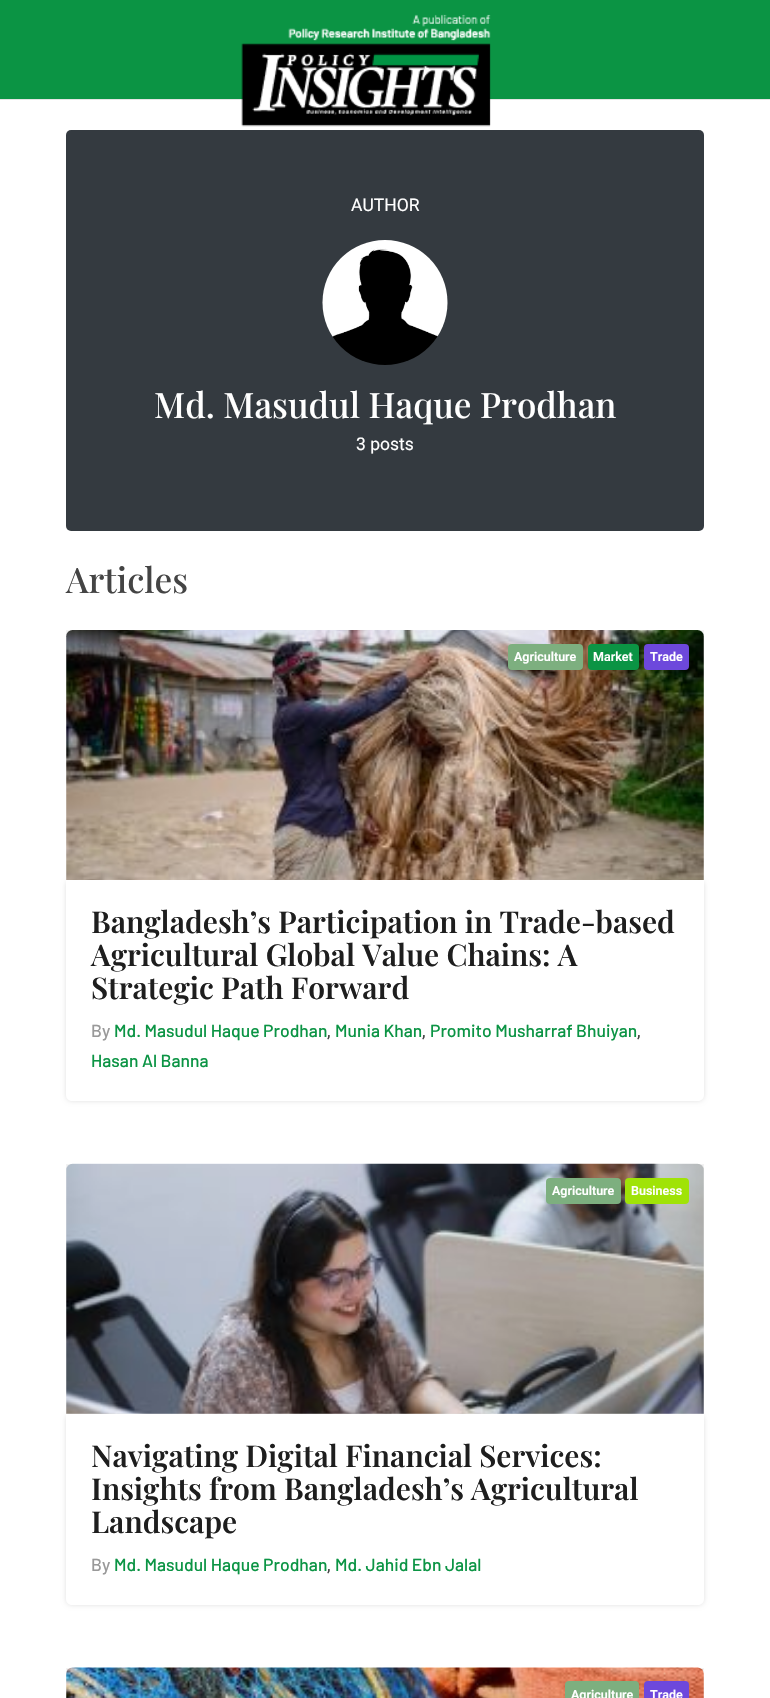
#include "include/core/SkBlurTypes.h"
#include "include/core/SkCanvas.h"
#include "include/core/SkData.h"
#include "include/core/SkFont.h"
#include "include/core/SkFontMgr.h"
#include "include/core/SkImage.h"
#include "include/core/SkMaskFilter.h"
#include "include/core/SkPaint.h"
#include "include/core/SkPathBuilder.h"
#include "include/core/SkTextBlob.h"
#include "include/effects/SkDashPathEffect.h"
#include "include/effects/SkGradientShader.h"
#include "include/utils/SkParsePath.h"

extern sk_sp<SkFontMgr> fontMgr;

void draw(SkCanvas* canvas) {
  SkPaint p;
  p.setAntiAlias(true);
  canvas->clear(SK_ColorWHITE);
  p.setColor(SkColorSetRGB(11, 148, 68));
  canvas->drawRect(SkRect::MakeLTRB(0, 0, 770, 99), p);
  p.setColor(SkColorSetRGB(229, 229, 229));
  canvas->drawRect(SkRect::MakeLTRB(0, 99, 770, 100), p);
  canvas->drawImageRect(SkImages::DeferredFromEncodedData(SkData::MakeFromFileName("images/1.png")), SkRect::MakeLTRB(241, 14, 491, 127), SkSamplingOptions());
  p.setColor(SkColorSetRGB(52, 58, 64));
  canvas->drawRoundRect(SkRect::MakeLTRB(66, 130, 704, 531), 5, 5, p);
  canvas->drawImageRect(SkImages::DeferredFromEncodedData(SkData::MakeFromFileName("images/2.png")), SkRect::MakeLTRB(322, 240, 448, 365), SkSamplingOptions());
  canvas->save();
  canvas->clipPath(SkPathBuilder(SkPathFillType::kEvenOdd).moveTo(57, 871).lineTo(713, 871).lineTo(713, 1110).lineTo(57, 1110).close().moveTo(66, 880).lineTo(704, 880).lineTo(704, 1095).cubicTo(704, 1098.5f, 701.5f, 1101, 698, 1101).lineTo(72, 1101).cubicTo(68.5f, 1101, 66, 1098.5f, 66, 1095).close().detach(), true);
  p.setColor(SkColorSetARGB(31, 0, 0, 0));
  p.setMaskFilter(SkMaskFilter::MakeBlur(kNormal_SkBlurStyle, 2.5f));
  canvas->drawRoundRect(SkRect::MakeLTRB(66, 880, 704, 1101), 6, 6, p);
  p.setMaskFilter(nullptr);
  canvas->restore();
  canvas->drawImageRect(SkImages::DeferredFromEncodedData(SkData::MakeFromFileName("images/3.png")), SkRect::MakeLTRB(66, 630, 704, 880), SkSamplingOptions());
  p.setColor(SkColorSetARGB(13, 0, 0, 0));
  canvas->drawRect(SkRect::MakeLTRB(66, 630, 704, 880), p);
  p.setColor(SkColorSetRGB(125, 175, 127));
  canvas->drawRoundRect(SkRect::MakeLTRB(508, 644, 583, 670), 4, 4, p);
  p.setColor(SkColorSetRGB(11, 148, 68));
  canvas->drawRoundRect(SkRect::MakeLTRB(588, 644, 639, 670), 4, 4, p);
  p.setColor(SkColorSetRGB(109, 72, 220));
  canvas->drawRoundRect(SkRect::MakeLTRB(644, 644, 689, 670), 4, 4, p);
  canvas->save();
  canvas->clipPath(SkPathBuilder(SkPathFillType::kEvenOdd).moveTo(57, 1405).lineTo(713, 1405).lineTo(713, 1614).lineTo(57, 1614).close().moveTo(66, 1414).lineTo(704, 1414).lineTo(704, 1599).cubicTo(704, 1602.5f, 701.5f, 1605, 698, 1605).lineTo(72, 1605).cubicTo(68.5f, 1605, 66, 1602.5f, 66, 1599).close().detach(), true);
  p.setColor(SkColorSetARGB(31, 0, 0, 0));
  p.setMaskFilter(SkMaskFilter::MakeBlur(kNormal_SkBlurStyle, 2.5f));
  canvas->drawRoundRect(SkRect::MakeLTRB(66, 1414, 704, 1605), 6, 6, p);
  p.setMaskFilter(nullptr);
  canvas->restore();
  canvas->drawImageRect(SkImages::DeferredFromEncodedData(SkData::MakeFromFileName("images/4.png")), SkRect::MakeLTRB(66, 1163, 704, 1414), SkSamplingOptions());
  p.setColor(SkColorSetARGB(13, 0, 0, 0));
  canvas->drawRect(SkRect::MakeLTRB(66, 1164, 704, 1414), p);
  p.setColor(SkColorSetRGB(125, 175, 127));
  canvas->drawRoundRect(SkRect::MakeLTRB(546, 1178, 621, 1204), 4, 4, p);
  p.setColor(SkColorSetRGB(160, 227, 7));
  canvas->drawRoundRect(SkRect::MakeLTRB(625, 1178, 689, 1204), 4, 4, p);
  canvas->drawImageRect(SkImages::DeferredFromEncodedData(SkData::MakeFromFileName("images/5.png")), SkRect::MakeLTRB(66, 1667, 704, 1698), SkSamplingOptions());
  p.setColor(SkColorSetARGB(13, 0, 0, 0));
  canvas->drawRect(SkRect::MakeLTRB(66, 1668, 704, 1698), p);
  p.setColor(SkColorSetRGB(125, 175, 127));
  canvas->drawRoundRect(SkRect::MakeLTRB(565, 1681, 639, 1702), 4, 4, p);
  p.setColor(SkColorSetRGB(109, 72, 220));
  canvas->drawRoundRect(SkRect::MakeLTRB(644, 1681, 689, 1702), 4, 4, p);
  SkFont font1(fontMgr->matchFamilyStyle("Roboto", SkFontStyle::Normal()), 17.5f);
  font1.setSubpixel(true);
  p.setColor(SK_ColorWHITE);
  canvas->drawString("AUTHOR", 351, 211, font1, p);
  SkFont font2(fontMgr->matchFamilyStyle("Playfair Display", SkFontStyle(500, SkFontStyle::kNormal_Width, SkFontStyle::kUpright_Slant)), 35);
  font2.setSubpixel(true);
  canvas->drawString("Md. Masudul Haque Prodhan", 154, 418, font2, p);
  canvas->drawString("3 posts", 356, 450, font1, p);
  p.setColor(SkColorSetRGB(68, 68, 68));
  canvas->drawString("Articles", 66, 593, font2, p);
  SkFont font3(fontMgr->matchFamilyStyle("Roboto", SkFontStyle(600, SkFontStyle::kNormal_Width, SkFontStyle::kUpright_Slant)), 12.5f);
  font3.setSubpixel(true);
  p.setColor(SK_ColorWHITE);
  canvas->drawString("Agriculture", 514, 661, font3, p);
  canvas->drawString("Market", 593, 661, font3, p);
  canvas->drawString("Trade", 650, 661, font3, p);
  SkFont font4(fontMgr->matchFamilyStyle("Playfair Display", SkFontStyle(600, SkFontStyle::kNormal_Width, SkFontStyle::kUpright_Slant)), 30);
  font4.setSubpixel(true);
  p.setColor(SkColorSetRGB(30, 30, 30));
  canvas->drawString("Bangladesh’s Participation in Trade-based", 91, 933, font4, p);
  canvas->drawString("Agricultural Global Value Chains: A", 91, 966, font4, p);
  canvas->drawString("Strategic Path Forward", 91, 999, font4, p);
  SkFont font5(fontMgr->matchFamilyStyle("Barlow", SkFontStyle(500, SkFontStyle::kNormal_Width, SkFontStyle::kUpright_Slant)), 17.5f);
  font5.setSubpixel(true);
  p.setColor(SkColorSetRGB(153, 153, 153));
  canvas->drawString("By", 91, 1037, font5, p);
  p.setColor(SkColorSetRGB(11, 148, 68));
  canvas->drawString("Md. Masudul Haque Prodhan", 114, 1037, font5, p);
  p.setColor(SkColorSetRGB(68, 68, 68));
  canvas->drawString(",", 327, 1037, font1, p);
  p.setColor(SkColorSetRGB(11, 148, 68));
  canvas->drawString("Munia Khan", 335, 1037, font5, p);
  p.setColor(SkColorSetRGB(68, 68, 68));
  canvas->drawString(",", 422, 1037, font1, p);
  p.setColor(SkColorSetRGB(11, 148, 68));
  canvas->drawString("Promito Musharraf Bhuiyan", 430, 1037, font5, p);
  p.setColor(SkColorSetRGB(68, 68, 68));
  canvas->drawString(",", 637, 1037, font1, p);
  p.setColor(SkColorSetRGB(11, 148, 68));
  canvas->drawString("Hasan Al Banna", 91, 1067, font5, p);
  p.setColor(SK_ColorWHITE);
  canvas->drawString("Agriculture", 552, 1195, font3, p);
  canvas->drawString("Business", 631, 1195, font3, p);
  p.setColor(SkColorSetRGB(30, 30, 30));
  canvas->drawString("Navigating Digital Financial Services:", 91, 1467, font4, p);
  canvas->drawString("Insights from Bangladesh’s Agricultural", 91, 1500, font4, p);
  canvas->drawString("Landscape", 91, 1533, font4, p);
  p.setColor(SkColorSetRGB(153, 153, 153));
  canvas->drawString("By", 91, 1571, font5, p);
  p.setColor(SkColorSetRGB(11, 148, 68));
  canvas->drawString("Md. Masudul Haque Prodhan", 114, 1571, font5, p);
  p.setColor(SkColorSetRGB(68, 68, 68));
  canvas->drawString(",", 327, 1571, font1, p);
  p.setColor(SkColorSetRGB(11, 148, 68));
  canvas->drawString("Md. Jahid Ebn Jalal", 335, 1571, font5, p);
  p.setColor(SK_ColorWHITE);
  canvas->drawString("Agriculture", 571, 1699, font3, p);
  canvas->drawString("Trade", 650, 1699, font3, p);
}
